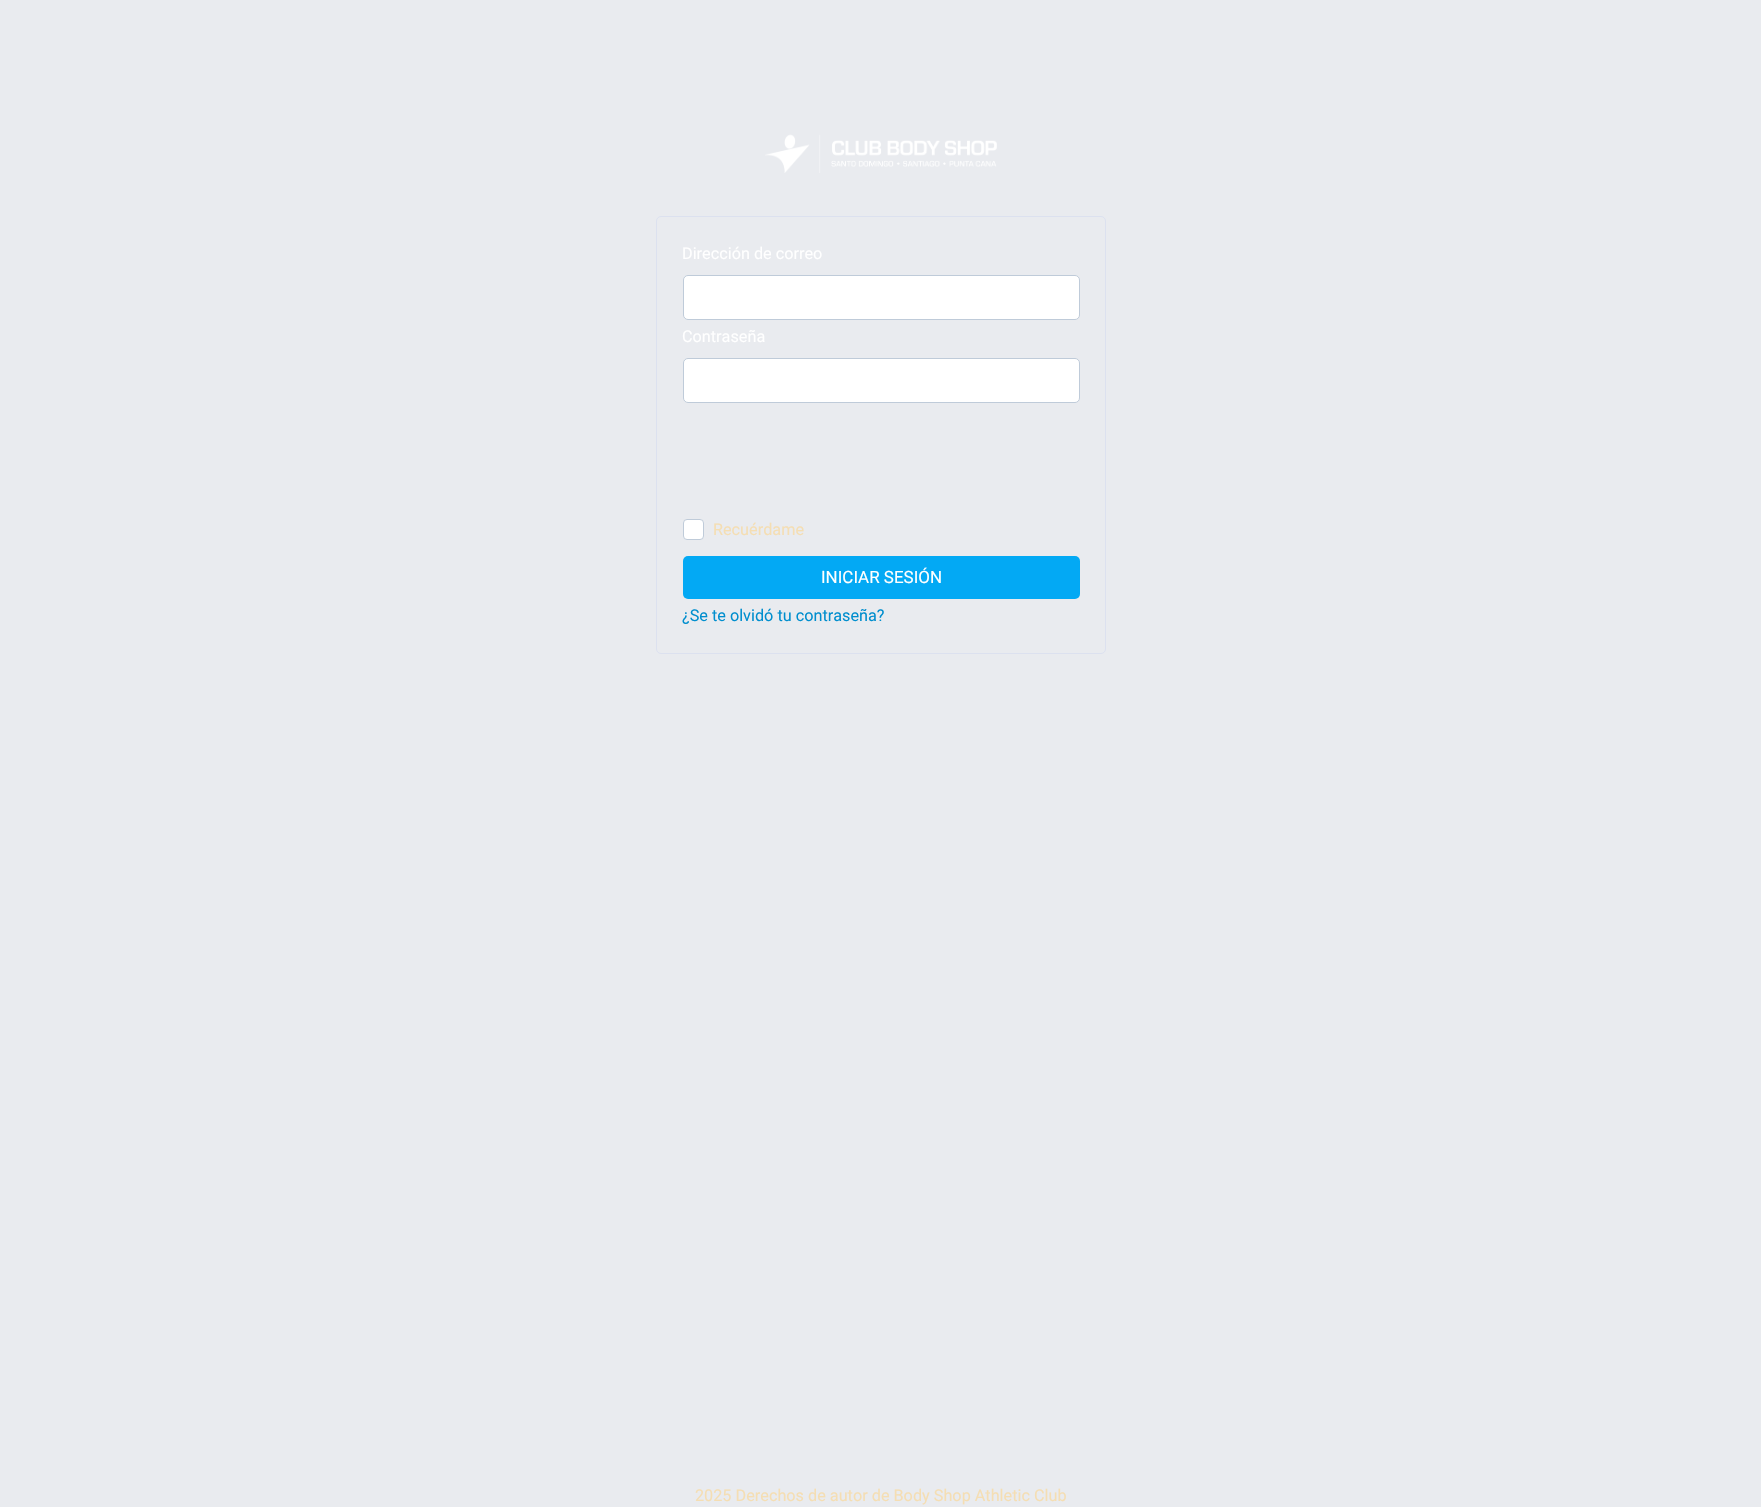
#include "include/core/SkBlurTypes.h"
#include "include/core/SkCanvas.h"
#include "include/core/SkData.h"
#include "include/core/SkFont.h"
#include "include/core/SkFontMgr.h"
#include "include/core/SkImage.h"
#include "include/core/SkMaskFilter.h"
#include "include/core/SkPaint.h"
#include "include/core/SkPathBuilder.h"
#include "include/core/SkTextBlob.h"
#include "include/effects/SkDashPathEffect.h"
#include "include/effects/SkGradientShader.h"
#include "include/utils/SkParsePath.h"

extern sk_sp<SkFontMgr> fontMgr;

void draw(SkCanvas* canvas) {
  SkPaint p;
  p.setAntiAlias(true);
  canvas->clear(SkColorSetRGB(233, 235, 239));
  canvas->drawImageRect(SkImages::DeferredFromEncodedData(SkData::MakeFromFileName("images/1.png")), SkRect::MakeLTRB(765, 134, 997, 173), SkSamplingOptions());
  p.setStyle(SkPaint::kStroke_Style);
  p.setStrokeWidth(1);
  p.setColor(SkColorSetRGB(220, 225, 239));
  canvas->drawRoundRect(SkRect::MakeLTRB(656.5f, 216.5f, 1105.5f, 653.5f), 4.5f, 4.5f, p);
  p.setStyle(SkPaint::kFill_Style);
  p.setColor(SK_ColorWHITE);
  canvas->drawRoundRect(SkRect::MakeLTRB(683.5f, 275.5f, 1079.5f, 319.5f), 4.5f, 4.5f, p);
  p.setStyle(SkPaint::kStroke_Style);
  p.setColor(SkColorSetRGB(191, 203, 217));
  canvas->drawRoundRect(SkRect::MakeLTRB(683.5f, 275.5f, 1079.5f, 319.5f), 4.5f, 4.5f, p);
  p.setStyle(SkPaint::kFill_Style);
  p.setColor(SK_ColorWHITE);
  canvas->drawRoundRect(SkRect::MakeLTRB(683.5f, 358.5f, 1079.5f, 402.5f), 4.5f, 4.5f, p);
  p.setStyle(SkPaint::kStroke_Style);
  p.setColor(SkColorSetRGB(191, 203, 217));
  canvas->drawRoundRect(SkRect::MakeLTRB(683.5f, 358.5f, 1079.5f, 402.5f), 4.5f, 4.5f, p);
  p.setStyle(SkPaint::kFill_Style);
  p.setColor(SK_ColorWHITE);
  canvas->drawRoundRect(SkRect::MakeLTRB(683.5f, 519.5f, 703.5f, 539.5f), 3.5f, 3.5f, p);
  p.setStyle(SkPaint::kStroke_Style);
  p.setColor(SkColorSetRGB(191, 203, 217));
  canvas->drawRoundRect(SkRect::MakeLTRB(683.5f, 519.5f, 703.5f, 539.5f), 3.5f, 3.5f, p);
  p.setStyle(SkPaint::kFill_Style);
  p.setColor(SkColorSetRGB(3, 169, 244));
  canvas->drawRoundRect(SkRect::MakeLTRB(683, 556, 1080, 599), 5, 5, p);
  SkFont font1(fontMgr->matchFamilyStyle("Roboto", SkFontStyle::Normal()), 16.25f);
  font1.setSubpixel(true);
  p.setColor(SK_ColorWHITE);
  canvas->drawString("Dirección de correo", 682, 259, font1, p);
  canvas->drawString("Contraseña", 682, 342, font1, p);
  p.setColor(SkColorSetRGB(245, 222, 179));
  canvas->drawString("Recuérdame", 713, 535, font1, p);
  SkFont font2(fontMgr->matchFamilyStyle("Roboto", SkFontStyle::Normal()), 17);
  font2.setSubpixel(true);
  p.setColor(SK_ColorWHITE);
  canvas->drawString("INICIAR SESIÓN", 821, 583, font2, p);
  p.setColor(SkColorSetRGB(0, 142, 206));
  canvas->drawString("¿Se te olvidó tu contraseña?", 682, 621, font1, p);
  p.setColor(SkColorSetRGB(245, 222, 179));
  canvas->drawString("2025 Derechos de autor de Body Shop Athletic Club", 695, 1501, font1, p);
}
